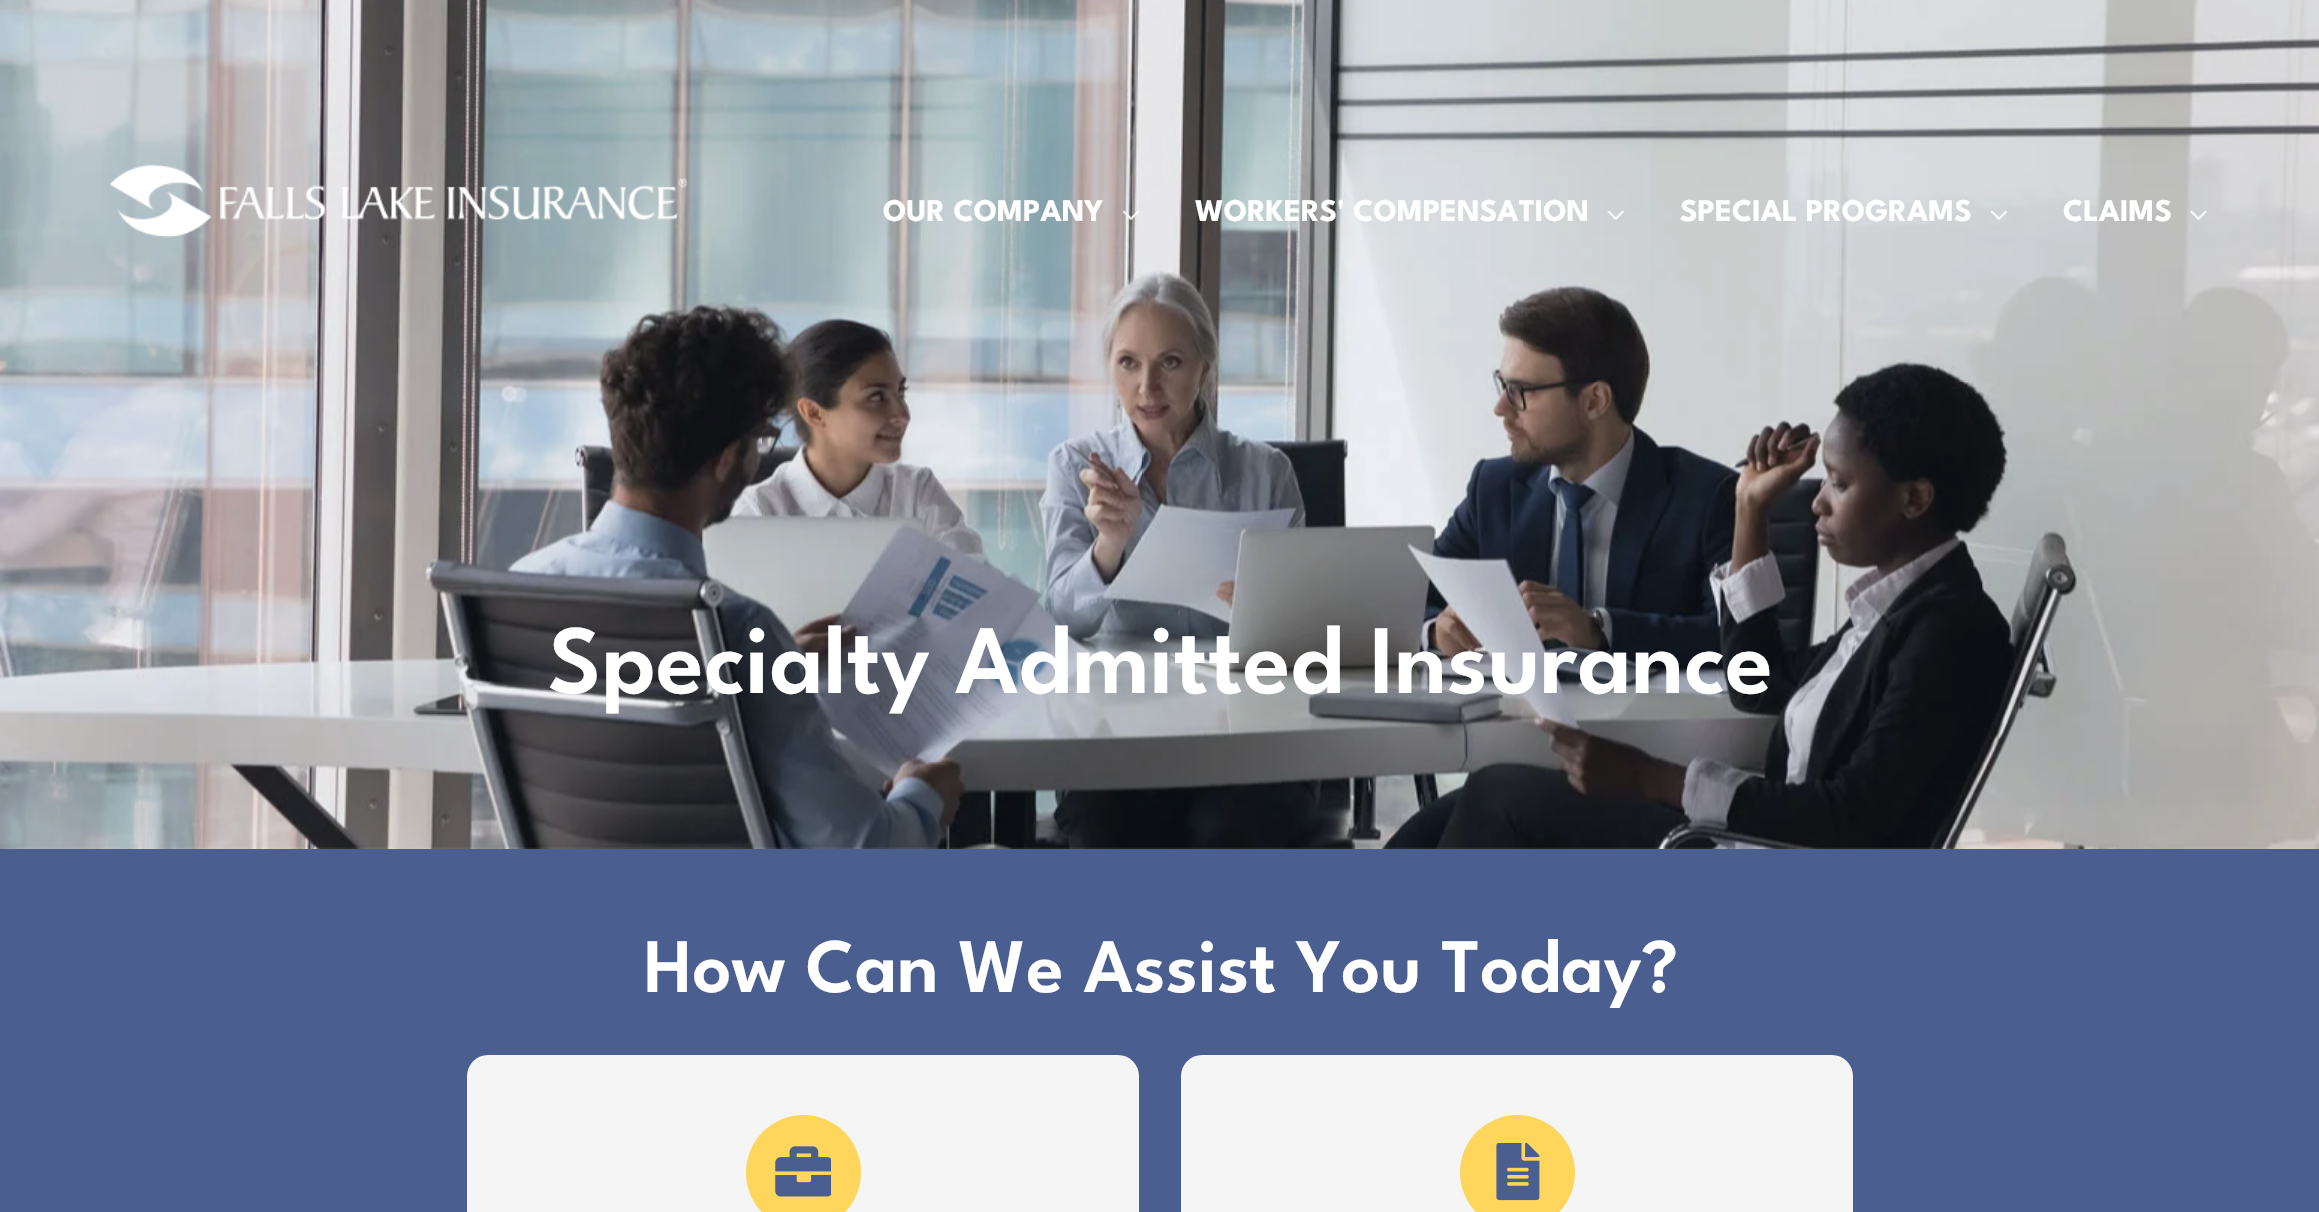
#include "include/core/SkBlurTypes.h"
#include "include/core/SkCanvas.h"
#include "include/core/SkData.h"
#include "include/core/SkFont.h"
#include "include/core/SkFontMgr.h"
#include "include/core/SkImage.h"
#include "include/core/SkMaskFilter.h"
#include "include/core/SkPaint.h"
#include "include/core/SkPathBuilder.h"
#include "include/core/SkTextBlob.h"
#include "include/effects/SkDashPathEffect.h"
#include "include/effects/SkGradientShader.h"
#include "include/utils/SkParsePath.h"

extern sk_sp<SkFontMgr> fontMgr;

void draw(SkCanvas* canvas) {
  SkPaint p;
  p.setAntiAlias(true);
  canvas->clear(SK_ColorWHITE);
  canvas->drawImageRect(SkImages::DeferredFromEncodedData(SkData::MakeFromFileName("images/6.png")), SkRect::MakeLTRB(0, 0, 2319, 849), SkSamplingOptions());
  canvas->drawImageRect(SkImages::DeferredFromEncodedData(SkData::MakeFromFileName("images/1.png")), SkRect::MakeLTRB(110, 164, 687, 238), SkSamplingOptions());
  canvas->drawImageRect(SkImages::DeferredFromEncodedData(SkData::MakeFromFileName("images/2.png")), SkRect::MakeLTRB(1122, 210, 1139, 220), SkSamplingOptions());
  canvas->drawImageRect(SkImages::DeferredFromEncodedData(SkData::MakeFromFileName("images/3.png")), SkRect::MakeLTRB(1607, 210, 1624, 220), SkSamplingOptions());
  canvas->drawImageRect(SkImages::DeferredFromEncodedData(SkData::MakeFromFileName("images/4.png")), SkRect::MakeLTRB(1990, 210, 2007, 220), SkSamplingOptions());
  canvas->drawImageRect(SkImages::DeferredFromEncodedData(SkData::MakeFromFileName("images/5.png")), SkRect::MakeLTRB(2190, 210, 2207, 220), SkSamplingOptions());
  p.setColor(SkColorSetRGB(74, 94, 143));
  canvas->drawRect(SkRect::MakeLTRB(0, 849, 2319, 1212), p);
  p.setColor(SkColorSetRGB(245, 245, 245));
  canvas->drawRoundRect(SkRect::MakeLTRB(467, 1055, 1139, 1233), 21, 21, p);
  p.setColor(SkColorSetRGB(253, 214, 91));
  canvas->drawCircle(803.5f, 1172.5f, 57.5f, p);
  canvas->drawImageRect(SkImages::DeferredFromEncodedData(SkData::MakeFromFileName("images/7.png")), SkRect::MakeLTRB(775, 1146, 831, 1197), SkSamplingOptions());
  p.setColor(SkColorSetRGB(245, 245, 245));
  canvas->drawRoundRect(SkRect::MakeLTRB(1181, 1055, 1853, 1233), 21, 21, p);
  p.setColor(SkColorSetRGB(253, 214, 91));
  canvas->drawCircle(1517.5f, 1172.5f, 57.5f, p);
  canvas->drawImageRect(SkImages::DeferredFromEncodedData(SkData::MakeFromFileName("images/8.png")), SkRect::MakeLTRB(1496, 1143, 1540, 1201), SkSamplingOptions());
  SkFont font1(fontMgr->matchFamilyStyle("League Spartan", SkFontStyle::Bold()), 31.5f);
  font1.setSubpixel(true);
  p.setColor(SK_ColorWHITE);
  canvas->drawString("OUR COMPANY", 883, 221, font1, p);
  canvas->drawString("WORKERS' COMPENSATION", 1195, 221, font1, p);
  canvas->drawString("SPECIAL PROGRAMS", 1680, 221, font1, p);
  canvas->drawString("CLAIMS", 2063, 221, font1, p);
  SkFont font2(fontMgr->matchFamilyStyle("League Spartan", SkFontStyle(600, SkFontStyle::kNormal_Width, SkFontStyle::kUpright_Slant)), 98);
  font2.setSubpixel(true);
  canvas->drawString("Specialty Admitted Insurance", 548, 693, font2, p);
  SkFont font3(fontMgr->matchFamilyStyle("League Spartan", SkFontStyle(600, SkFontStyle::kNormal_Width, SkFontStyle::kUpright_Slant)), 76.9f);
  font3.setSubpixel(true);
  canvas->drawString("How Can We Assist You Today?", 644, 992, font3, p);
}
